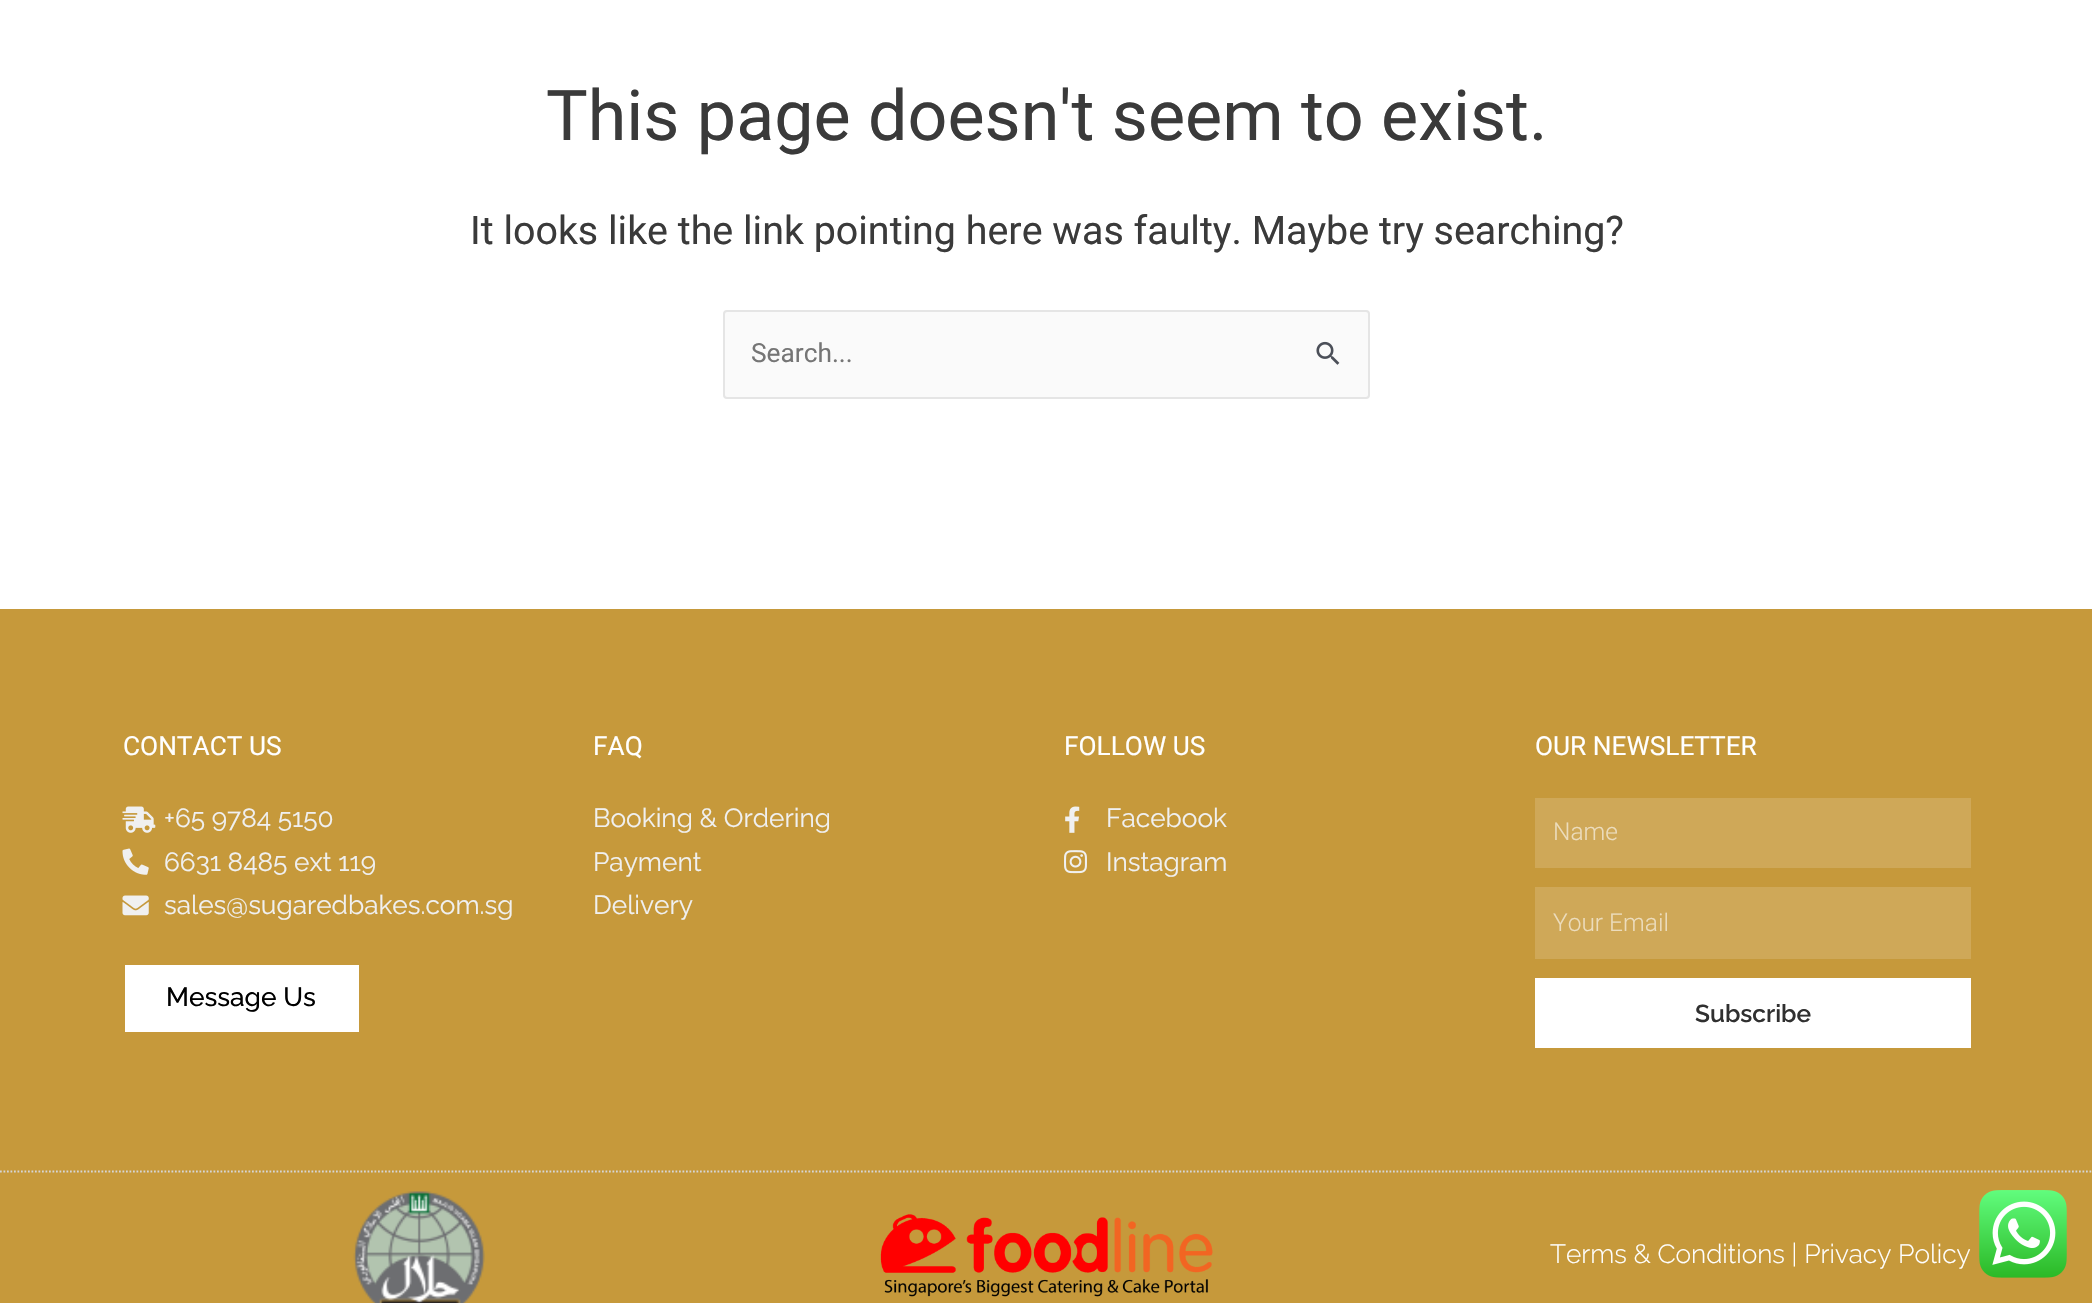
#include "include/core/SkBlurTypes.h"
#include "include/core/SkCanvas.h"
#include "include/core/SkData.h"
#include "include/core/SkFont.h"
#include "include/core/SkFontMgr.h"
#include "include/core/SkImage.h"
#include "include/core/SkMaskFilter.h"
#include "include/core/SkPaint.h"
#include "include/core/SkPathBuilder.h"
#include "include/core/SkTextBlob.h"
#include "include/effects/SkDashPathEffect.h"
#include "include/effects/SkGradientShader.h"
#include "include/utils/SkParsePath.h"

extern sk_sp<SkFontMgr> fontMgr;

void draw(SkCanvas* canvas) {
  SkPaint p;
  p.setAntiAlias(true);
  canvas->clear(SK_ColorWHITE);
  p.setColor(SkColorSetRGB(250, 250, 250));
  canvas->drawRoundRect(SkRect::MakeLTRB(724, 311, 1369, 398), 3, 3, p);
  p.setStyle(SkPaint::kStroke_Style);
  p.setStrokeWidth(2);
  p.setColor(SkColorSetRGB(229, 229, 229));
  canvas->drawRoundRect(SkRect::MakeLTRB(724, 311, 1369, 398), 3, 3, p);
  canvas->drawImageRect(SkImages::DeferredFromEncodedData(SkData::MakeFromFileName("images/1.png")), SkRect::MakeLTRB(1316, 341, 1340, 365), SkSamplingOptions());
  p.setStyle(SkPaint::kFill_Style);
  p.setColor(SkColorSetRGB(198, 153, 59));
  canvas->drawRect(SkRect::MakeLTRB(0, 609, 2092, 1303), p);
  canvas->drawImageRect(SkImages::DeferredFromEncodedData(SkData::MakeFromFileName("images/2.png")), SkRect::MakeLTRB(122, 806, 156, 833), SkSamplingOptions());
  canvas->drawImageRect(SkImages::DeferredFromEncodedData(SkData::MakeFromFileName("images/3.png")), SkRect::MakeLTRB(122, 848, 149, 875), SkSamplingOptions());
  canvas->drawImageRect(SkImages::DeferredFromEncodedData(SkData::MakeFromFileName("images/4.png")), SkRect::MakeLTRB(122, 895, 149, 916), SkSamplingOptions());
  p.setColor(SK_ColorWHITE);
  canvas->drawRect(SkRect::MakeLTRB(125, 965, 359, 1032), p);
  canvas->drawImageRect(SkImages::DeferredFromEncodedData(SkData::MakeFromFileName("images/5.png")), SkRect::MakeLTRB(1065, 806, 1080, 833), SkSamplingOptions());
  canvas->drawImageRect(SkImages::DeferredFromEncodedData(SkData::MakeFromFileName("images/6.png")), SkRect::MakeLTRB(1064, 850, 1087, 874), SkSamplingOptions());
  p.setColor(SkColorSetRGB(207, 168, 88));
  canvas->drawRect(SkRect::MakeLTRB(1535, 798, 1971, 868), p);
  canvas->drawRect(SkRect::MakeLTRB(1535, 887, 1971, 959), p);
  p.setColor(SK_ColorWHITE);
  canvas->drawRect(SkRect::MakeLTRB(1535, 978, 1971, 1048), p);
  p.setStyle(SkPaint::kStroke_Style);
  p.setStrokeWidth(1.8f);
  p.setColor(SkColorSetRGB(214, 214, 214));
  p.setPathEffect(SkDashPathEffect::Make({{1.75f, 1.75f}}, 0));
  canvas->drawPath(SkPathBuilder().moveTo(0, 1171.5f).lineTo(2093, 1171.5f).detach(), p);
  p.setPathEffect(nullptr);
  canvas->drawImageRect(SkImages::DeferredFromEncodedData(SkData::MakeFromFileName("images/7.png")), SkRect::MakeLTRB(353, 1191, 485, 1303), SkSamplingOptions());
  canvas->drawImageRect(SkImages::DeferredFromEncodedData(SkData::MakeFromFileName("images/8.png")), SkRect::MakeLTRB(880, 1214, 1213, 1297), SkSamplingOptions());
  canvas->drawImageRect(SkImages::DeferredFromEncodedData(SkData::MakeFromFileName("images/9.png")), SkRect::MakeLTRB(1979, 1190, 2067, 1278), SkSamplingOptions());
  SkFont font1(fontMgr->matchFamilyStyle("Roboto", SkFontStyle::Normal()), 70);
  font1.setSubpixel(true);
  p.setStyle(SkPaint::kFill_Style);
  p.setColor(SkColorSetRGB(58, 58, 58));
  canvas->drawString("This page doesn't seem to exist.", 546, 140, font1, p);
  SkFont font2(fontMgr->matchFamilyStyle("Roboto", SkFontStyle::Normal()), 39.4f);
  font2.setSubpixel(true);
  canvas->drawString("It looks like the link pointing here was faulty. Maybe try searching?", 470, 244, font2, p);
  SkFont font3(fontMgr->matchFamilyStyle("Roboto", SkFontStyle::Normal()), 26.25f);
  font3.setSubpixel(true);
  p.setColor(SkColorSetRGB(117, 117, 117));
  canvas->drawString("Search...", 751, 362, font3, p);
  p.setColor(SK_ColorWHITE);
  canvas->drawString("CONTACT US", 123, 755, font3, p);
  SkFont font4(fontMgr->matchFamilyStyle("Raleway", SkFontStyle::Normal()), 26.25f);
  font4.setSubpixel(true);
  p.setColor(SkColorSetRGB(240, 240, 240));
  canvas->drawString("+65 9784 5150", 164, 827, font4, p);
  canvas->drawString("6631 8485 ext 119", 164, 871, font4, p);
  canvas->drawString("sales@sugaredbakes.com.sg", 164, 914, font4, p);
  SkFont font5(fontMgr->matchFamilyStyle("Raleway", SkFontStyle(500, SkFontStyle::kNormal_Width, SkFontStyle::kUpright_Slant)), 26.25f);
  font5.setSubpixel(true);
  p.setColor(SK_ColorBLACK);
  canvas->drawString("Message Us", 166, 1006, font5, p);
  p.setColor(SK_ColorWHITE);
  canvas->drawString("FAQ", 593, 755, font3, p);
  p.setColor(SkColorSetRGB(240, 240, 240));
  canvas->drawString("Booking & Ordering", 593, 827, font4, p);
  canvas->drawString("Payment", 593, 871, font4, p);
  canvas->drawString("Delivery", 593, 914, font4, p);
  p.setColor(SK_ColorWHITE);
  canvas->drawString("FOLLOW US", 1064, 755, font3, p);
  p.setColor(SkColorSetRGB(240, 240, 240));
  canvas->drawString("Facebook", 1106, 827, font4, p);
  canvas->drawString("Instagram", 1106, 871, font4, p);
  p.setColor(SK_ColorWHITE);
  canvas->drawString("OUR NEWSLETTER", 1535, 755, font3, p);
  SkFont font6(fontMgr->matchFamilyStyle("Roboto", SkFontStyle(300, SkFontStyle::kNormal_Width, SkFontStyle::kUpright_Slant)), 24.5f);
  font6.setSubpixel(true);
  p.setColor(SkColorSetRGB(236, 220, 188));
  canvas->drawString("Name", 1553, 840, font6, p);
  canvas->drawString("Your Email", 1553, 931, font6, p);
  SkFont font7(fontMgr->matchFamilyStyle("Raleway", SkFontStyle(600, SkFontStyle::kNormal_Width, SkFontStyle::kUpright_Slant)), 24.5f);
  font7.setSubpixel(true);
  p.setColor(SkColorSetRGB(48, 48, 48));
  canvas->drawString("Subscribe", 1695, 1022, font7, p);
  SkFont font8(fontMgr->matchFamilyStyle("Raleway", SkFontStyle(300, SkFontStyle::kNormal_Width, SkFontStyle::kUpright_Slant)), 26.25f);
  font8.setSubpixel(true);
  p.setColor(SK_ColorWHITE);
  canvas->drawString("Terms & Conditions | Privacy Policy", 1550, 1263, font8, p);
}
